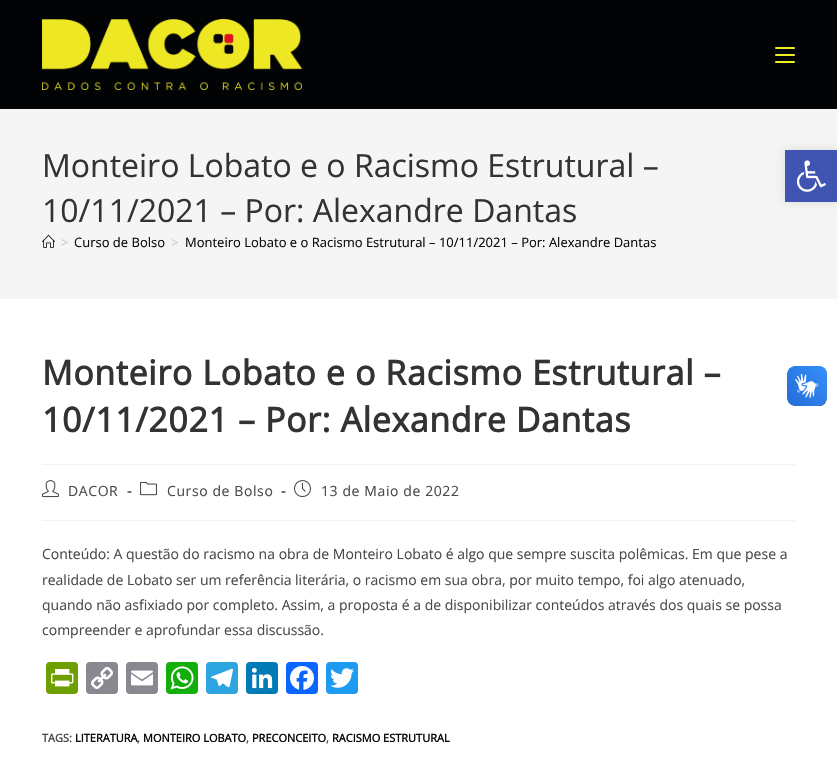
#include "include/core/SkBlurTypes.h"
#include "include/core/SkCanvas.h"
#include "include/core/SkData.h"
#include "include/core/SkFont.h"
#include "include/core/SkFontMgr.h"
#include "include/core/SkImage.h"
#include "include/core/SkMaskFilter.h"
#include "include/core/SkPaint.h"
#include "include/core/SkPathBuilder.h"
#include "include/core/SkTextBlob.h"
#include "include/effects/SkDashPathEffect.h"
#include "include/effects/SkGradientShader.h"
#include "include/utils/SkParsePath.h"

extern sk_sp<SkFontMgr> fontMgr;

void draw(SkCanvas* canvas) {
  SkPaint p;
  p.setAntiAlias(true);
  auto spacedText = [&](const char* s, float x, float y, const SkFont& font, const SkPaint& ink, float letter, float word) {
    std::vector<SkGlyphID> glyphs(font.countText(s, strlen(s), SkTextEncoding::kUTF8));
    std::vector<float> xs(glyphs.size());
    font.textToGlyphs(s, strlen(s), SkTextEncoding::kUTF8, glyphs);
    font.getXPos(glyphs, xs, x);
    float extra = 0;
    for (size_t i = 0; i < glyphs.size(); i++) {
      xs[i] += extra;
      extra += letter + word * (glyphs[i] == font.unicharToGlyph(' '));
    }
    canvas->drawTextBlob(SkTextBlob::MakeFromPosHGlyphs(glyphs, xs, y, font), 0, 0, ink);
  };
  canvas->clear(SK_ColorWHITE);
  p.setColor(SkColorSetRGB(2, 3, 4));
  canvas->drawRect(SkRect::MakeLTRB(0, 0, 837, 109), p);
  canvas->drawImageRect(SkImages::DeferredFromEncodedData(SkData::MakeFromFileName("images/1.png")), SkRect::MakeLTRB(42, 19, 302, 90), SkSamplingOptions());
  p.setColor(SkColorSetRGB(238, 238, 34));
  canvas->drawRoundRect(SkRect::MakeLTRB(775, 54, 795, 56), 1, 1, p);
  canvas->drawRoundRect(SkRect::MakeLTRB(775, 47, 795, 49), 1, 1, p);
  canvas->drawRoundRect(SkRect::MakeLTRB(775, 61, 795, 63), 1, 1, p);
  p.setColor(SkColorSetRGB(245, 245, 245));
  canvas->drawRect(SkRect::MakeLTRB(0, 109, 837, 299), p);
  canvas->drawImageRect(SkImages::DeferredFromEncodedData(SkData::MakeFromFileName("images/2.png")), SkRect::MakeLTRB(42, 234, 55, 248), SkSamplingOptions());
  p.setColor(SkColorSetRGB(241, 241, 241));
  canvas->drawRect(SkRect::MakeLTRB(42, 464, 795, 465), p);
  canvas->drawRect(SkRect::MakeLTRB(42, 520, 795, 521), p);
  canvas->drawImageRect(SkImages::DeferredFromEncodedData(SkData::MakeFromFileName("images/3.png")), SkRect::MakeLTRB(42, 480, 59, 498), SkSamplingOptions());
  canvas->drawImageRect(SkImages::DeferredFromEncodedData(SkData::MakeFromFileName("images/4.png")), SkRect::MakeLTRB(140, 481, 157, 496), SkSamplingOptions());
  canvas->drawImageRect(SkImages::DeferredFromEncodedData(SkData::MakeFromFileName("images/5.png")), SkRect::MakeLTRB(294, 480, 311, 498), SkSamplingOptions());
  p.setColor(SkColorSetRGB(109, 159, 0));
  canvas->drawRoundRect(SkRect::MakeLTRB(46, 662, 78, 694), 4, 4, p);
  canvas->drawImageRect(SkImages::DeferredFromEncodedData(SkData::MakeFromFileName("images/6.png")), SkRect::MakeLTRB(51, 669, 74, 687), SkSamplingOptions());
  p.setColor(SkColorSetRGB(136, 137, 144));
  canvas->drawRoundRect(SkRect::MakeLTRB(86, 662, 118, 694), 4, 4, p);
  canvas->drawImageRect(SkImages::DeferredFromEncodedData(SkData::MakeFromFileName("images/7.png")), SkRect::MakeLTRB(91, 667, 113, 689), SkSamplingOptions());
  canvas->drawRoundRect(SkRect::MakeLTRB(126, 662, 158, 694), 4, 4, p);
  canvas->drawImageRect(SkImages::DeferredFromEncodedData(SkData::MakeFromFileName("images/8.png")), SkRect::MakeLTRB(131, 670, 153, 686), SkSamplingOptions());
  p.setColor(SkColorSetRGB(18, 175, 10));
  canvas->drawRoundRect(SkRect::MakeLTRB(166, 662, 198, 694), 4, 4, p);
  canvas->drawImageRect(SkImages::DeferredFromEncodedData(SkData::MakeFromFileName("images/9.png")), SkRect::MakeLTRB(170, 666, 194, 690), SkSamplingOptions());
  p.setColor(SkColorSetRGB(44, 165, 224));
  canvas->drawRoundRect(SkRect::MakeLTRB(206, 662, 238, 694), 4, 4, p);
  canvas->drawImageRect(SkImages::DeferredFromEncodedData(SkData::MakeFromFileName("images/10.png")), SkRect::MakeLTRB(211, 668, 233, 688), SkSamplingOptions());
  p.setColor(SkColorSetRGB(0, 123, 181));
  canvas->drawRoundRect(SkRect::MakeLTRB(246, 662, 278, 694), 4, 4, p);
  canvas->drawImageRect(SkImages::DeferredFromEncodedData(SkData::MakeFromFileName("images/11.png")), SkRect::MakeLTRB(251, 667, 273, 689), SkSamplingOptions());
  p.setColor(SkColorSetRGB(8, 102, 255));
  canvas->drawRoundRect(SkRect::MakeLTRB(286, 662, 318, 694), 4, 4, p);
  canvas->drawImageRect(SkImages::DeferredFromEncodedData(SkData::MakeFromFileName("images/12.png")), SkRect::MakeLTRB(290, 666, 314, 690), SkSamplingOptions());
  p.setColor(SkColorSetRGB(29, 155, 240));
  canvas->drawRoundRect(SkRect::MakeLTRB(326, 662, 358, 694), 4, 4, p);
  canvas->drawImageRect(SkImages::DeferredFromEncodedData(SkData::MakeFromFileName("images/13.png")), SkRect::MakeLTRB(330, 668, 354, 688), SkSamplingOptions());
  p.setColor(SkColorSetARGB(26, 0, 0, 0));
  p.setMaskFilter(SkMaskFilter::MakeBlur(kNormal_SkBlurStyle, 5));
  canvas->drawRect(SkRect::MakeLTRB(785, 150, 837, 202), p);
  p.setMaskFilter(nullptr);
  p.setColor(SkColorSetRGB(64, 84, 178));
  canvas->drawRect(SkRect::MakeLTRB(785, 150, 837, 202), p);
  canvas->drawImageRect(SkImages::DeferredFromEncodedData(SkData::MakeFromFileName("images/14.png")), SkRect::MakeLTRB(796, 160, 826, 192), SkSamplingOptions());
  canvas->drawImageRect(SkImages::DeferredFromEncodedData(SkData::MakeFromFileName("images/15.png")), SkRect::MakeLTRB(787, 366, 827, 406), SkSamplingOptions());
  canvas->drawImageRect(SkImages::DeferredFromEncodedData(SkData::MakeFromFileName("images/16.png")), SkRect::MakeLTRB(787, 366, 827, 406), SkSamplingOptions());
  SkFont font1(fontMgr->matchFamilyStyle("Open Sans", SkFontStyle::Normal()), 32);
  font1.setSubpixel(true);
  p.setColor(SkColorSetRGB(51, 51, 51));
  canvas->drawString("Monteiro Lobato e o Racismo Estrutural –", 42, 177, font1, p);
  canvas->drawString("10/11/2021 – Por: Alexandre Dantas", 42, 222, font1, p);
  SkFont font2(fontMgr->matchFamilyStyle("Open Sans", SkFontStyle::Normal()), 13);
  font2.setSubpixel(true);
  p.setColor(SkColorSetRGB(198, 198, 198));
  canvas->drawString(">", 61, 247, font2, p);
  p.setColor(SkColorSetRGB(10, 10, 10));
  canvas->drawString("Curso de Bolso", 74, 247, font2, p);
  p.setColor(SkColorSetRGB(198, 198, 198));
  canvas->drawString(">", 171, 247, font2, p);
  p.setColor(SkColorSetRGB(10, 10, 10));
  canvas->drawString("Monteiro Lobato e o Racismo Estrutural – 10/11/2021 – Por: Alexandre Dantas", 185, 247, font2, p);
  SkFont font3(fontMgr->matchFamilyStyle("Open Sans", SkFontStyle::Bold()), 34);
  font3.setSubpixel(true);
  p.setColor(SkColorSetRGB(51, 51, 51));
  spacedText("Monteiro Lobato e o Racismo Estrutural –", 42, 385, font3, p, 0.6f, 0);
  spacedText("10/11/2021 – Por: Alexandre Dantas", 42, 432, font3, p, 0.6f, 0);
  SkFont font4(fontMgr->matchFamilyStyle("Open Sans", SkFontStyle::Normal()), 14);
  font4.setSubpixel(true);
  p.setColor(SkColorSetRGB(74, 74, 74));
  spacedText("DACOR", 68, 496, font4, p, 0.6f, 0);
  SkFont font5(fontMgr->matchFamilyStyle("Open Sans", SkFontStyle::Bold()), 14);
  font5.setSubpixel(true);
  spacedText("-", 127, 496, font5, p, 0.6f, 0);
  spacedText("Curso de Bolso", 167, 496, font4, p, 0.6f, 0);
  spacedText("-", 281, 496, font5, p, 0.6f, 0);
  spacedText("13 de Maio de 2022", 321, 496, font4, p, 0.6f, 0);
  canvas->drawString("Conteúdo: A questão do racismo na obra de Monteiro Lobato é algo que sempre suscita polêmicas. Em que pese a", 42, 559, font4, p);
  canvas->drawString("realidade de Lobato ser um referência literária, o racismo em sua obra, por muito tempo, foi algo atenuado,", 42, 585, font4, p);
  canvas->drawString("quando não asfixiado por completo. Assim, a proposta é a de disponibilizar conteúdos através dos quais se possa", 42, 610, font4, p);
  canvas->drawString("compreender e aprofundar essa discussão.", 42, 635, font4, p);
  SkFont font6(fontMgr->matchFamilyStyle("Open Sans", SkFontStyle::Bold()), 11);
  font6.setSubpixel(true);
  canvas->drawString("TAGS:", 42, 742, font6, p);
  p.setColor(SkColorSetRGB(10, 10, 10));
  canvas->drawString("LITERATURA", 75, 742, font6, p);
  p.setColor(SkColorSetRGB(74, 74, 74));
  canvas->drawString(",", 137, 742, font6, p);
  p.setColor(SkColorSetRGB(10, 10, 10));
  canvas->drawString("MONTEIRO LOBATO", 143, 742, font6, p);
  p.setColor(SkColorSetRGB(74, 74, 74));
  canvas->drawString(",", 246, 742, font6, p);
  p.setColor(SkColorSetRGB(10, 10, 10));
  canvas->drawString("PRECONCEITO", 252, 742, font6, p);
  p.setColor(SkColorSetRGB(74, 74, 74));
  canvas->drawString(",", 326, 742, font6, p);
  p.setColor(SkColorSetRGB(10, 10, 10));
  canvas->drawString("RACISMO ESTRUTURAL", 332, 742, font6, p);
}
